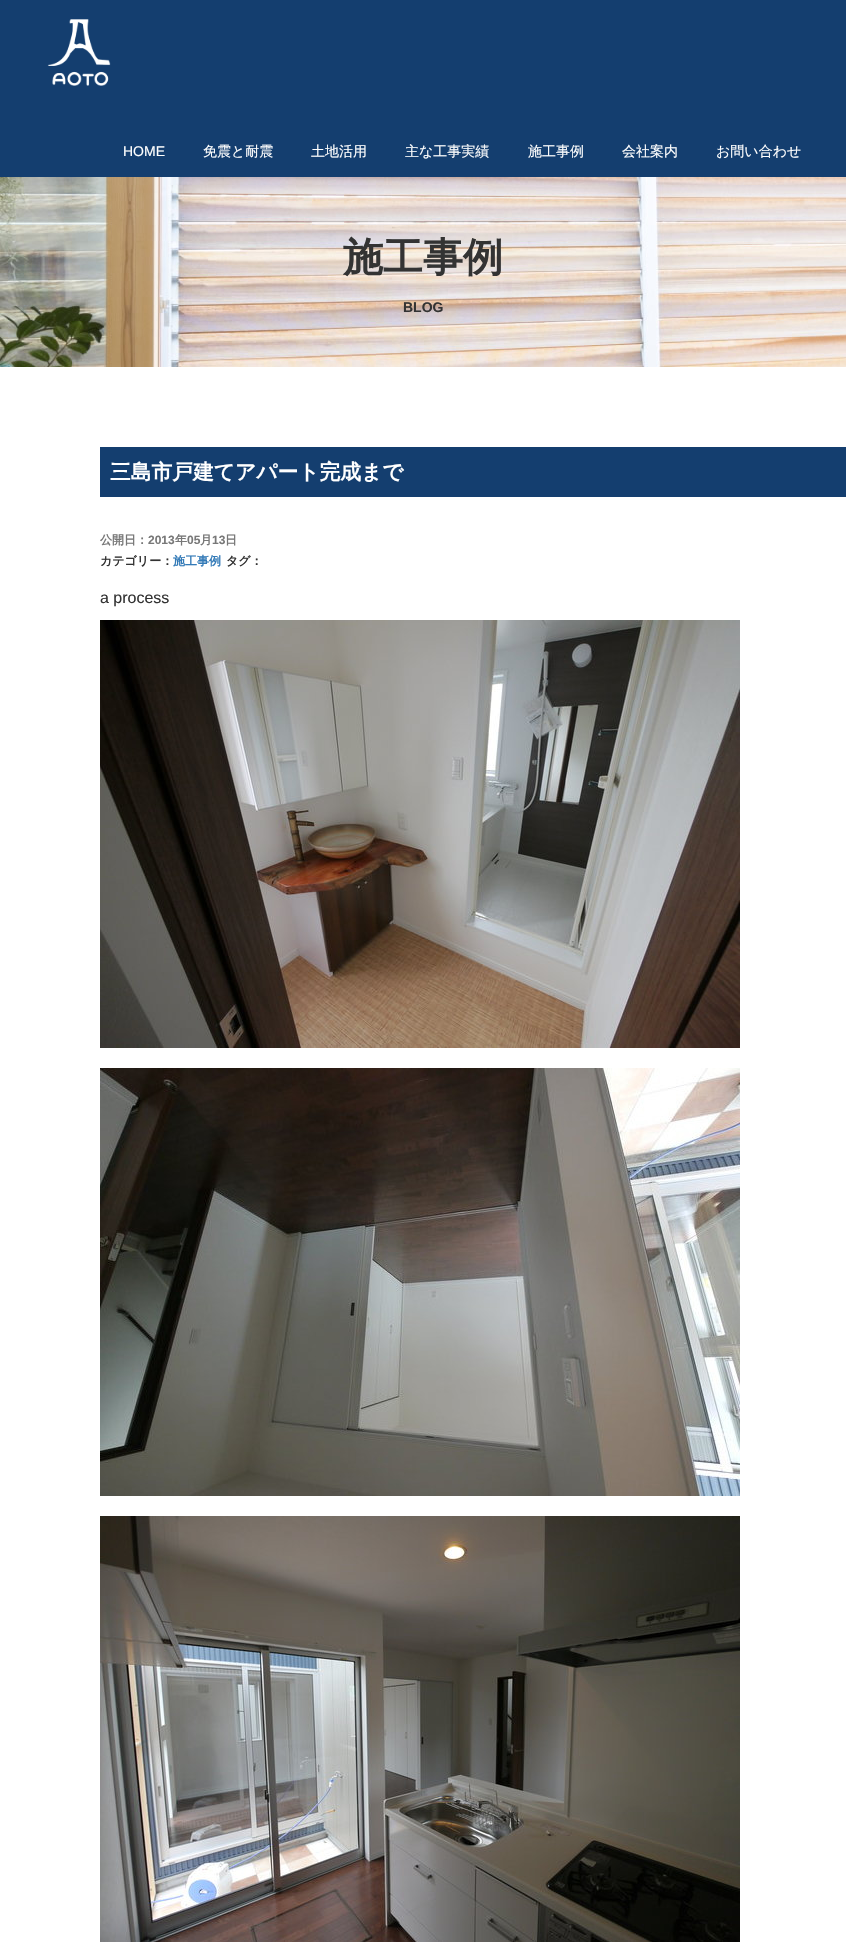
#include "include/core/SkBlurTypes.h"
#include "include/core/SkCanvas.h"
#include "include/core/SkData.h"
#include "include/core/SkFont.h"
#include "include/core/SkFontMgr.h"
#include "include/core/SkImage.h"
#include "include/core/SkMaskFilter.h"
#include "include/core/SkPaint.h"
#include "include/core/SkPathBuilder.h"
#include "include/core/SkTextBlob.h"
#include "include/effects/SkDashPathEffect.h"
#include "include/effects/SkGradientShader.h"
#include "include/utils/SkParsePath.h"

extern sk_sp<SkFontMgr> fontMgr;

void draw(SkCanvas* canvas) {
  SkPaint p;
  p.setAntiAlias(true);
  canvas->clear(SK_ColorWHITE);
  p.setColor(SkColorSetRGB(20, 62, 111));
  canvas->drawRect(SkRect::MakeLTRB(0, 0, 846, 177), p);
  canvas->drawImageRect(SkImages::DeferredFromEncodedData(SkData::MakeFromFileName("images/1.png")), SkRect::MakeLTRB(47, 19, 111, 86), SkSamplingOptions());
  canvas->drawImageRect(SkImages::DeferredFromEncodedData(SkData::MakeFromFileName("images/2.png")), SkRect::MakeLTRB(0, 177, 846, 367), SkSamplingOptions());
  canvas->drawRect(SkRect::MakeLTRB(100, 447, 846, 497), p);
  canvas->drawImageRect(SkImages::DeferredFromEncodedData(SkData::MakeFromFileName("images/3.png")), SkRect::MakeLTRB(100, 620, 740, 1048), SkSamplingOptions());
  canvas->drawImageRect(SkImages::DeferredFromEncodedData(SkData::MakeFromFileName("images/4.png")), SkRect::MakeLTRB(100, 1068, 740, 1496), SkSamplingOptions());
  canvas->drawImageRect(SkImages::DeferredFromEncodedData(SkData::MakeFromFileName("images/5.png")), SkRect::MakeLTRB(100, 1516, 740, 1942), SkSamplingOptions());
  SkFont font1(fontMgr->matchFamilyStyle("Liberation Sans", SkFontStyle::Normal()), 14);
  font1.setSubpixel(true);
  p.setColor(SK_ColorWHITE);
  canvas->drawString("HOME", 123, 156, font1, p);
  SkFont font2(fontMgr->matchFamilyStyle("WenQuanYi Zen Hei", SkFontStyle(500, SkFontStyle::kNormal_Width, SkFontStyle::kUpright_Slant)), 14);
  font2.setSubpixel(true);
  canvas->drawString("免震と耐震", 203, 156, font2, p);
  canvas->drawString("土地活用", 311, 156, font2, p);
  canvas->drawString("主な工事実績", 405, 156, font2, p);
  canvas->drawString("施工事例", 528, 156, font2, p);
  canvas->drawString("会社案内", 622, 156, font2, p);
  canvas->drawString("お問い合わせ", 716, 156, font2, p);
  SkFont font3(fontMgr->matchFamilyStyle("WenQuanYi Zen Hei", SkFontStyle::Bold()), 40);
  font3.setSubpixel(true);
  p.setColor(SkColorSetRGB(51, 51, 51));
  canvas->drawString("施工事例", 343, 271, font3, p);
  SkFont font4(fontMgr->matchFamilyStyle("Liberation Sans", SkFontStyle::Bold()), 14);
  font4.setSubpixel(true);
  canvas->drawString("BLOG", 403, 312, font4, p);
  SkFont font5(fontMgr->matchFamilyStyle("WenQuanYi Zen Hei", SkFontStyle::Bold()), 20.75f);
  font5.setSubpixel(true);
  p.setColor(SK_ColorWHITE);
  canvas->drawString("三島市戸建てアパート完成まで", 110, 479, font5, p);
  SkFont font6(fontMgr->matchFamilyStyle("WenQuanYi Zen Hei", SkFontStyle::Bold()), 12);
  font6.setSubpixel(true);
  p.setColor(SkColorSetRGB(120, 120, 120));
  canvas->drawString("公開日：", 100, 544, font6, p);
  SkFont font7(fontMgr->matchFamilyStyle("Liberation Sans", SkFontStyle::Bold()), 12);
  font7.setSubpixel(true);
  canvas->drawString("2013", 148, 544, font7, p);
  canvas->drawString("年", 175, 544, font6, p);
  canvas->drawString("05", 187, 544, font7, p);
  canvas->drawString("月", 200, 544, font6, p);
  canvas->drawString("13", 212, 544, font7, p);
  canvas->drawString("日", 225, 544, font6, p);
  p.setColor(SkColorSetRGB(51, 51, 51));
  canvas->drawString("カテゴリー：", 100, 565, font6, p);
  p.setColor(SkColorSetRGB(51, 122, 183));
  canvas->drawString("施工事例", 173, 565, font6, p);
  p.setColor(SkColorSetRGB(51, 51, 51));
  canvas->drawString("タグ：", 226, 565, font6, p);
  SkFont font8(fontMgr->matchFamilyStyle("Liberation Sans", SkFontStyle::Normal()), 16);
  font8.setSubpixel(true);
  canvas->drawString("a process", 100, 603, font8, p);
}
